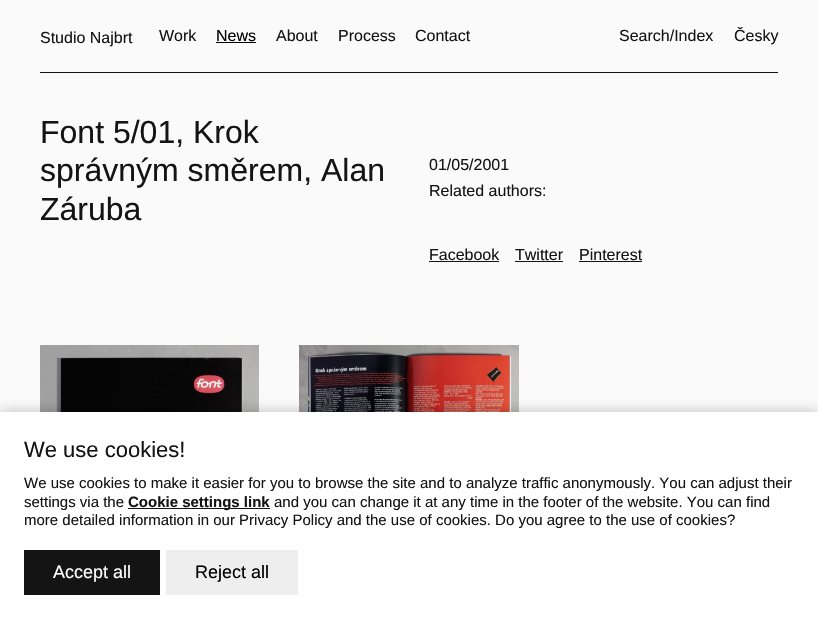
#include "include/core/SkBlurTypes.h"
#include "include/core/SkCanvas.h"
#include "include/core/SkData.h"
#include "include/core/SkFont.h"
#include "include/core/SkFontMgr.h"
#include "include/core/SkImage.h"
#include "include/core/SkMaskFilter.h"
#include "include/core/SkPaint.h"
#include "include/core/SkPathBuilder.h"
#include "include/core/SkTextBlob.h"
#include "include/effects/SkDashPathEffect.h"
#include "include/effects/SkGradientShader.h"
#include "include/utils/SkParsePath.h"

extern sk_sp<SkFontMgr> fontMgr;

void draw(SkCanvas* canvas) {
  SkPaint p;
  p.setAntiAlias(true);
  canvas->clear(SkColorSetRGB(250, 250, 250));
  p.setColor(SkColorSetRGB(20, 20, 20));
  canvas->drawRect(SkRect::MakeLTRB(40, 72, 778, 73), p);
  p.setColor(SK_ColorBLACK);
  canvas->drawRect(SkRect::MakeLTRB(216, 42, 256, 43), p);
  p.setColor(SkColorSetRGB(20, 20, 20));
  canvas->drawRect(SkRect::MakeLTRB(429, 261, 499, 262), p);
  canvas->drawRect(SkRect::MakeLTRB(515, 261, 563, 262), p);
  canvas->drawRect(SkRect::MakeLTRB(579, 261, 642, 262), p);
  canvas->drawImageRect(SkImages::DeferredFromEncodedData(SkData::MakeFromFileName("images/1.png")), SkRect::MakeLTRB(40, 345, 259, 412), SkSamplingOptions());
  canvas->drawImageRect(SkImages::DeferredFromEncodedData(SkData::MakeFromFileName("images/2.png")), SkRect::MakeLTRB(299, 345, 519, 412), SkSamplingOptions());
  p.setColor(SkColorSetARGB(64, 0, 0, 0));
  p.setMaskFilter(SkMaskFilter::MakeBlur(kNormal_SkBlurStyle, 6));
  canvas->drawRect(SkRect::MakeLTRB(0, 412, 818, 619), p);
  p.setMaskFilter(nullptr);
  p.setColor(SK_ColorWHITE);
  canvas->drawRect(SkRect::MakeLTRB(0, 412, 818, 619), p);
  p.setColor(SkColorSetRGB(20, 20, 20));
  canvas->drawRect(SkRect::MakeLTRB(128, 508, 270, 509), p);
  canvas->drawRect(SkRect::MakeLTRB(24, 550, 160, 595), p);
  p.setColor(SkColorSetRGB(238, 238, 238));
  canvas->drawRect(SkRect::MakeLTRB(166, 550, 298, 595), p);
  SkFont font1(fontMgr->matchFamilyStyle("Liberation Sans", SkFontStyle::Normal()), 16);
  font1.setSubpixel(true);
  p.setColor(SkColorSetRGB(20, 20, 20));
  canvas->drawString("Studio Najbrt", 40, 43, font1, p);
  canvas->drawString("Work", 159, 41, font1, p);
  p.setColor(SK_ColorBLACK);
  canvas->drawString("News", 216, 41, font1, p);
  p.setColor(SkColorSetRGB(20, 20, 20));
  canvas->drawString("About", 276, 41, font1, p);
  canvas->drawString("Process", 338, 41, font1, p);
  canvas->drawString("Contact", 415, 41, font1, p);
  canvas->drawString("Search/Index", 619, 41, font1, p);
  canvas->drawString("Česky", 734, 41, font1, p);
  SkFont font2(fontMgr->matchFamilyStyle("Liberation Sans", SkFontStyle::Normal()), 32);
  font2.setSubpixel(true);
  canvas->drawString("Font 5/01, Krok", 40, 143, font2, p);
  canvas->drawString("správným směrem, Alan", 40, 181, font2, p);
  canvas->drawString("Záruba", 40, 220, font2, p);
  canvas->drawString("01/05/2001", 429, 170, font1, p);
  canvas->drawString("Related authors:", 429, 196, font1, p);
  canvas->drawString("Facebook", 429, 260, font1, p);
  canvas->drawString("Twitter", 515, 260, font1, p);
  canvas->drawString("Pinterest", 579, 260, font1, p);
  SkFont font3(fontMgr->matchFamilyStyle("Liberation Sans", SkFontStyle::Normal()), 22);
  font3.setSubpixel(true);
  canvas->drawString("We use cookies!", 24, 457, font3, p);
  SkFont font4(fontMgr->matchFamilyStyle("Liberation Sans", SkFontStyle::Normal()), 15);
  font4.setSubpixel(true);
  canvas->drawString("We use cookies to make it easier for you to browse the site and to analyze traffic anonymously. You can adjust their", 24, 488, font4, p);
  canvas->drawString("settings via the", 24, 507, font4, p);
  SkFont font5(fontMgr->matchFamilyStyle("Liberation Sans", SkFontStyle::Bold()), 15);
  font5.setSubpixel(true);
  canvas->drawString("Cookie settings link", 128, 507, font5, p);
  canvas->drawString("and you can change it at any time in the footer of the website. You can find", 274, 507, font4, p);
  canvas->drawString("more detailed information in our Privacy Policy and the use of cookies. Do you agree to the use of cookies?", 24, 525, font4, p);
  SkFont font6(fontMgr->matchFamilyStyle("Liberation Sans", SkFontStyle::Normal()), 18);
  font6.setSubpixel(true);
  p.setColor(SK_ColorWHITE);
  canvas->drawString("Accept all", 53, 578, font6, p);
  p.setColor(SK_ColorBLACK);
  canvas->drawString("Reject all", 195, 578, font6, p);
}
